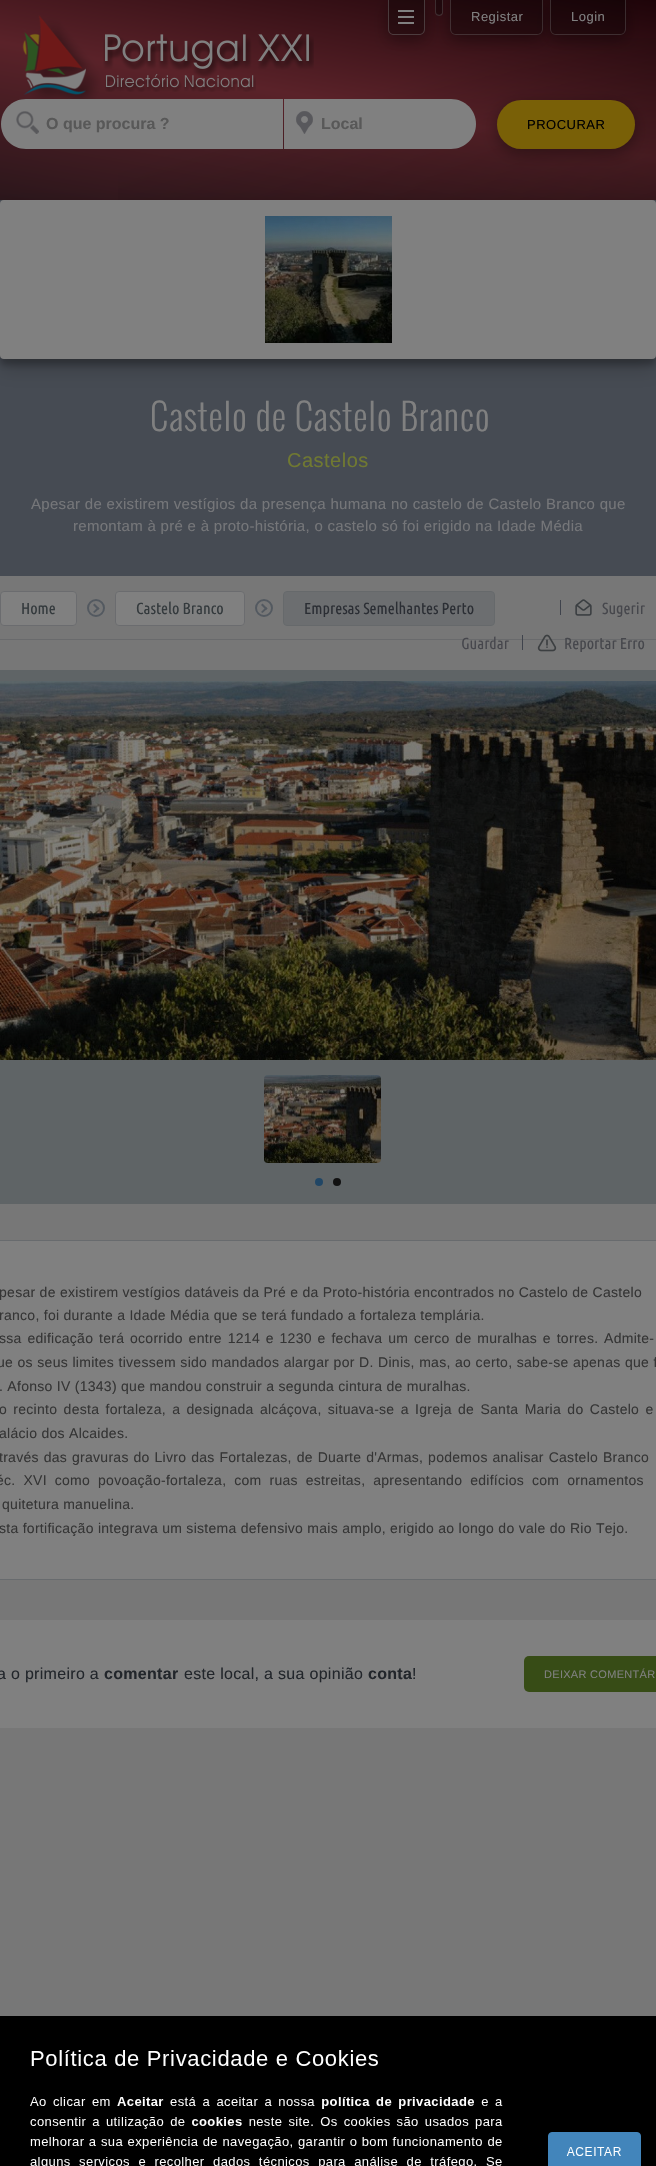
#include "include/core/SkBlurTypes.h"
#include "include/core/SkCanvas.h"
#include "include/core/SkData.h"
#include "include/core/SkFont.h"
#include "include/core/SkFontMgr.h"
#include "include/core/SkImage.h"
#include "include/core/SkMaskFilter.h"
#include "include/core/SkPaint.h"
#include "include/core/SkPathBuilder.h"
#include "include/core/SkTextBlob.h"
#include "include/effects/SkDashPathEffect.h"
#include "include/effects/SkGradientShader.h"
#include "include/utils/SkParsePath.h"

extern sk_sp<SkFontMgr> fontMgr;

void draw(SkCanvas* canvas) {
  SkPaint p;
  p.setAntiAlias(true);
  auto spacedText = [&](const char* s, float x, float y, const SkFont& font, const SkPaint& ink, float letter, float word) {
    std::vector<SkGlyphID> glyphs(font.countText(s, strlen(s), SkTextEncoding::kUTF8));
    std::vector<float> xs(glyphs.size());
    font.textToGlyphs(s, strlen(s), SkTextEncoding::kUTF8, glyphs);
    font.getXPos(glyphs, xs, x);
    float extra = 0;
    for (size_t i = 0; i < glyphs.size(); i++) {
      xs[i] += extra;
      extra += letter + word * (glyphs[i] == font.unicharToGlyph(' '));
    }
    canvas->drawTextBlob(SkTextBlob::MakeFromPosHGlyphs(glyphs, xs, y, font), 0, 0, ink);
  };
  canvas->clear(SkColorSetRGB(119, 119, 119));
  {
    const SkColor colors[] = {SkColorSetRGB(30, 4, 9), SkColorSetRGB(90, 34, 41), SkColorSetRGB(43, 22, 27)};
    const float stops[] = {0, 0.5f, 1};
    const SkPoint ends[] = {{355, -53}, {301, 253}};
    p.setShader(SkGradientShader::MakeLinear(ends, colors, stops, 3, SkTileMode::kClamp));
    p.setAlpha(255);
  }
  canvas->drawRect(SkRect::MakeLTRB(0, 0, 656, 200), p);
  {
    const SkColor colors[] = {SkColorSetARGB(77, 0, 0, 0), SkColorSetARGB(0, 0, 0, 0)};
    const float stops[] = {0, 0.5f};
    const SkPoint ends[] = {{384, 283}, {272, -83}};
    p.setShader(SkGradientShader::MakeLinear(ends, colors, stops, 2, SkTileMode::kClamp));
    p.setAlpha(255);
  }
  canvas->drawRect(SkRect::MakeLTRB(118, 38, 656, 200), p);
  canvas->save();
  canvas->clipPath(SkPathBuilder(SkPathFillType::kEvenOdd).moveTo(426, 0).lineTo(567, 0).lineTo(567, 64).lineTo(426, 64).close().moveTo(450, 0).lineTo(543, 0).lineTo(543, 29).cubicTo(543, 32.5f, 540.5f, 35, 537, 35).lineTo(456, 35).cubicTo(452.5f, 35, 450, 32.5f, 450, 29).close().detach(), true);
  p.setShader(nullptr);
  p.setColor(SkColorSetARGB(89, 0, 0, 0));
  p.setMaskFilter(SkMaskFilter::MakeBlur(kNormal_SkBlurStyle, 7.5f));
  canvas->drawRoundRect(SkRect::MakeLTRB(450, 5, 543, 40), 6, 6, p);
  p.setMaskFilter(nullptr);
  canvas->restore();
  p.setColor(SkColorSetARGB(77, 0, 0, 0));
  canvas->drawPath(SkPathBuilder().moveTo(435, 0).lineTo(443, 0).lineTo(443, 12).cubicTo(443, 14, 441, 16, 439, 16).cubicTo(437, 16, 435, 14, 435, 12).close().detach(), p);
  p.setColor(SkColorSetARGB(77, 128, 128, 128));
  canvas->drawPath(SkPathBuilder(SkPathFillType::kEvenOdd).moveTo(435, 0).lineTo(443, 0).lineTo(443, 13).cubicTo(442, 17.5f, 435, 16.5f, 435, 12).close().moveTo(436, 0).lineTo(442, 0).lineTo(442, 13).cubicTo(440.5f, 16, 436, 15, 436, 12).close().detach(), p);
  canvas->save();
  canvas->clipPath(SkPathBuilder(SkPathFillType::kEvenOdd).moveTo(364, 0).lineTo(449, 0).lineTo(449, 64).lineTo(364, 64).close().moveTo(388, 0).lineTo(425, 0).lineTo(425, 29).cubicTo(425, 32.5f, 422.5f, 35, 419, 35).lineTo(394, 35).cubicTo(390.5f, 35, 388, 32.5f, 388, 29).close().detach(), true);
  p.setColor(SkColorSetARGB(89, 0, 0, 0));
  p.setMaskFilter(SkMaskFilter::MakeBlur(kNormal_SkBlurStyle, 7.5f));
  canvas->drawRoundRect(SkRect::MakeLTRB(388, 5, 425, 40), 6, 6, p);
  p.setMaskFilter(nullptr);
  canvas->restore();
  p.setColor(SkColorSetARGB(77, 0, 0, 0));
  canvas->drawPath(SkPathBuilder().moveTo(388, 0).lineTo(425, 0).lineTo(425, 29).cubicTo(425, 32.5f, 422.5f, 35, 419, 35).lineTo(394, 35).cubicTo(390.5f, 35, 388, 32.5f, 388, 29).close().detach(), p);
  canvas->drawImageRect(SkImages::DeferredFromEncodedData(SkData::MakeFromFileName("images/1.png")), SkRect::MakeLTRB(398, 10, 414, 24), SkSamplingOptions());
  p.setColor(SkColorSetARGB(102, 128, 128, 128));
  canvas->drawPath(SkPathBuilder(SkPathFillType::kEvenOdd).moveTo(388, 0).lineTo(425, 0).lineTo(425, 29).cubicTo(425, 32.5f, 422.5f, 35, 419, 35).lineTo(394, 35).cubicTo(390.5f, 35, 388, 32.5f, 388, 29).close().moveTo(389, 0).lineTo(424, 0).lineTo(424, 29).cubicTo(424, 32, 422, 34, 419, 34).lineTo(394, 34).cubicTo(391, 34, 389, 32, 389, 29).close().detach(), p);
  p.setColor(SkColorSetARGB(77, 0, 0, 0));
  canvas->drawPath(SkPathBuilder().moveTo(450, 0).lineTo(543, 0).lineTo(543, 29).cubicTo(543, 32.5f, 540.5f, 35, 537, 35).lineTo(456, 35).cubicTo(452.5f, 35, 450, 32.5f, 450, 29).close().detach(), p);
  p.setColor(SkColorSetARGB(77, 128, 128, 128));
  canvas->drawPath(SkPathBuilder(SkPathFillType::kEvenOdd).moveTo(450, 0).lineTo(543, 0).lineTo(543, 29).cubicTo(543, 32, 540, 35, 537, 35).lineTo(456, 35).cubicTo(453, 35, 450, 32, 450, 29).close().moveTo(451, 0).lineTo(542, 0).lineTo(542, 29).cubicTo(542, 32, 540, 34, 537, 34).lineTo(456, 34).cubicTo(453, 34, 451, 32, 451, 29).close().detach(), p);
  canvas->save();
  canvas->clipPath(SkPathBuilder(SkPathFillType::kEvenOdd).moveTo(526, 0).lineTo(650, 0).lineTo(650, 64).lineTo(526, 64).close().moveTo(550, 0).lineTo(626, 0).lineTo(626, 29).cubicTo(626, 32.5f, 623.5f, 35, 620, 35).lineTo(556, 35).cubicTo(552.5f, 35, 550, 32.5f, 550, 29).close().detach(), true);
  p.setColor(SkColorSetARGB(89, 0, 0, 0));
  p.setMaskFilter(SkMaskFilter::MakeBlur(kNormal_SkBlurStyle, 7.5f));
  canvas->drawRoundRect(SkRect::MakeLTRB(550, 5, 626, 40), 6, 6, p);
  p.setMaskFilter(nullptr);
  canvas->restore();
  p.setColor(SkColorSetARGB(77, 0, 0, 0));
  canvas->drawPath(SkPathBuilder().moveTo(550, 0).lineTo(626, 0).lineTo(626, 29).cubicTo(626, 32.5f, 623.5f, 35, 620, 35).lineTo(556, 35).cubicTo(552.5f, 35, 550, 32.5f, 550, 29).close().detach(), p);
  p.setColor(SkColorSetARGB(77, 128, 128, 128));
  canvas->drawPath(SkPathBuilder(SkPathFillType::kEvenOdd).moveTo(550, 0).lineTo(626, 0).lineTo(626, 29).cubicTo(626, 32, 623, 35, 620, 35).lineTo(556, 35).cubicTo(553, 35, 550, 32, 550, 29).close().moveTo(551, 0).lineTo(625, 0).lineTo(625, 29).cubicTo(625, 32, 623, 34, 620, 34).lineTo(556, 34).cubicTo(553, 34, 551, 32, 551, 29).close().detach(), p);
  canvas->drawImageRect(SkImages::DeferredFromEncodedData(SkData::MakeFromFileName("images/2.png")), SkRect::MakeLTRB(22, 15, 314, 99), SkSamplingOptions());
  p.setColor(SkColorSetRGB(128, 128, 128));
  canvas->drawPath(SkPathBuilder().moveTo(26, 99).lineTo(283, 99).lineTo(283, 149).lineTo(26, 149).cubicTo(12, 149, 1, 138, 1, 124).cubicTo(1, 110, 12, 99, 26, 99).close().detach(), p);
  canvas->drawImageRect(SkImages::DeferredFromEncodedData(SkData::MakeFromFileName("images/3.png")), SkRect::MakeLTRB(16, 111, 39, 134), SkSamplingOptions());
  p.setColor(SkColorSetARGB(89, 0, 0, 0));
  p.setMaskFilter(SkMaskFilter::MakeBlur(kNormal_SkBlurStyle, 7.5f));
  canvas->drawRoundRect(SkRect::MakeLTRB(497, 105, 635, 154), 24.5f, 24.5f, p);
  p.setMaskFilter(nullptr);
  p.setColor(SkColorSetRGB(128, 128, 128));
  canvas->drawPath(SkPathBuilder().moveTo(284, 99).lineTo(451, 99).cubicTo(465, 99, 476, 110, 476, 124).cubicTo(476, 138, 465, 149, 451, 149).lineTo(284, 149).close().detach(), p);
  canvas->drawImageRect(SkImages::DeferredFromEncodedData(SkData::MakeFromFileName("images/4.png")), SkRect::MakeLTRB(296, 111, 313, 134), SkSamplingOptions());
  p.setColor(SkColorSetRGB(121, 96, 7));
  canvas->drawRoundRect(SkRect::MakeLTRB(497, 100, 635, 149), 24.5f, 24.5f, p);
  p.setColor(SkColorSetRGB(70, 75, 83));
  canvas->drawRect(SkRect::MakeLTRB(0, 200, 656, 576), p);
  p.setColor(SkColorSetARGB(59, 0, 0, 0));
  p.setMaskFilter(SkMaskFilter::MakeBlur(kNormal_SkBlurStyle, 3));
  canvas->drawRoundRect(SkRect::MakeLTRB(0, 206, 656, 365), 4, 4, p);
  p.setMaskFilter(nullptr);
  p.setColor(SkColorSetARGB(48, 0, 0, 0));
  p.setMaskFilter(SkMaskFilter::MakeBlur(kNormal_SkBlurStyle, 10));
  canvas->drawRoundRect(SkRect::MakeLTRB(0, 210, 656, 369), 4, 4, p);
  p.setMaskFilter(nullptr);
  p.setColor(SkColorSetRGB(128, 128, 128));
  canvas->drawRoundRect(SkRect::MakeLTRB(0, 200, 656, 359), 4, 4, p);
  canvas->drawImageRect(SkImages::DeferredFromEncodedData(SkData::MakeFromFileName("images/5.png")), SkRect::MakeLTRB(265, 216, 392, 343), SkSamplingOptions());
  p.setColor(SkColorSetRGB(105, 106, 108));
  canvas->drawRect(SkRect::MakeLTRB(0, 639, 656, 640), p);
  p.setColor(SkColorSetRGB(128, 128, 128));
  canvas->drawRoundRect(SkRect::MakeLTRB(0.5f, 591.5f, 76.5f, 625.5f), 3.5f, 3.5f, p);
  p.setStyle(SkPaint::kStroke_Style);
  p.setStrokeWidth(1);
  p.setColor(SkColorSetRGB(107, 108, 111));
  canvas->drawRoundRect(SkRect::MakeLTRB(0.5f, 591.5f, 76.5f, 625.5f), 3.5f, 3.5f, p);
  p.setStrokeWidth(2);
  p.setColor(SkColorSetRGB(83, 89, 96));
  canvas->drawCircle(96, 608, 8, p);
  p.setStyle(SkPaint::kFill_Style);
  canvas->drawPath(SkPathBuilder().moveTo(94.5f, 603.5f).lineTo(99.5f, 608.5f).lineTo(98, 610).lineTo(93, 605).close().detach(), p);
  canvas->drawPath(SkPathBuilder().moveTo(98, 607).lineTo(99.5f, 608.5f).lineTo(94.5f, 613).lineTo(93, 612).close().detach(), p);
  p.setColor(SkColorSetRGB(128, 128, 128));
  canvas->drawRoundRect(SkRect::MakeLTRB(115.5f, 591.5f, 244.5f, 625.5f), 3.5f, 3.5f, p);
  p.setStyle(SkPaint::kStroke_Style);
  p.setStrokeWidth(1);
  p.setColor(SkColorSetRGB(107, 108, 111));
  canvas->drawRoundRect(SkRect::MakeLTRB(115.5f, 591.5f, 244.5f, 625.5f), 3.5f, 3.5f, p);
  p.setStrokeWidth(2);
  p.setColor(SkColorSetRGB(83, 89, 96));
  canvas->drawCircle(264, 608, 8, p);
  p.setStyle(SkPaint::kFill_Style);
  canvas->drawPath(SkPathBuilder().moveTo(262.5f, 603.5f).lineTo(267.5f, 608.5f).lineTo(266, 610).lineTo(261, 605).close().detach(), p);
  canvas->drawPath(SkPathBuilder().moveTo(266, 607).lineTo(267.5f, 608.5f).lineTo(262.5f, 613).lineTo(261, 612).close().detach(), p);
  p.setColor(SkColorSetRGB(108, 110, 112));
  canvas->drawRoundRect(SkRect::MakeLTRB(283.5f, 591.5f, 494.5f, 625.5f), 3.5f, 3.5f, p);
  p.setStyle(SkPaint::kStroke_Style);
  p.setStrokeWidth(1);
  p.setColor(SkColorSetRGB(102, 105, 107));
  canvas->drawRoundRect(SkRect::MakeLTRB(283.5f, 591.5f, 494.5f, 625.5f), 3.5f, 3.5f, p);
  p.setStyle(SkPaint::kFill_Style);
  p.setColor(SkColorSetRGB(63, 67, 76));
  canvas->drawRect(SkRect::MakeLTRB(560, 600, 561, 615), p);
  canvas->drawImageRect(SkImages::DeferredFromEncodedData(SkData::MakeFromFileName("images/6.png")), SkRect::MakeLTRB(575, 599, 592, 616), SkSamplingOptions());
  canvas->drawImageRect(SkImages::DeferredFromEncodedData(SkData::MakeFromFileName("images/7.png")), SkRect::MakeLTRB(462, 636, 509, 650), SkSamplingOptions());
  canvas->drawRect(SkRect::MakeLTRB(522, 635, 523, 650), p);
  canvas->drawImageRect(SkImages::DeferredFromEncodedData(SkData::MakeFromFileName("images/8.png")), SkRect::MakeLTRB(537, 634, 557, 652), SkSamplingOptions());
  p.setColor(SkColorSetRGB(95, 100, 102));
  canvas->drawRect(SkRect::MakeLTRB(0, 670, 656, 1204), p);
  canvas->drawImageRect(SkImages::DeferredFromEncodedData(SkData::MakeFromFileName("images/9.png")), SkRect::MakeLTRB(0, 681, 656, 1060), SkSamplingOptions());
  canvas->drawImageRect(SkImages::DeferredFromEncodedData(SkData::MakeFromFileName("images/10.png")), SkRect::MakeLTRB(264, 1075, 381, 1163), SkSamplingOptions());
  p.setColor(SkColorSetRGB(33, 70, 101));
  canvas->drawCircle(319, 1182, 4, p);
  p.setColor(SkColorSetRGB(17, 17, 17));
  canvas->drawCircle(337, 1182, 4, p);
  p.setColor(SkColorSetRGB(128, 128, 128));
  canvas->drawRect(SkRect::MakeLTRB(-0.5f, 1240.5f, 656.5f, 1579.5f), p);
  p.setStyle(SkPaint::kStroke_Style);
  p.setColor(SkColorSetRGB(104, 107, 110));
  canvas->drawRect(SkRect::MakeLTRB(-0.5f, 1240.5f, 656.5f, 1579.5f), p);
  p.setStyle(SkPaint::kFill_Style);
  p.setColor(SkColorSetRGB(128, 128, 128));
  canvas->drawRect(SkRect::MakeLTRB(0, 1620, 656, 1728), p);
  p.setColor(SkColorSetRGB(55, 76, 22));
  canvas->drawRoundRect(SkRect::MakeLTRB(524, 1656, 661, 1692), 5, 5, p);
  canvas->drawImageRect(SkImages::DeferredFromEncodedData(SkData::MakeFromFileName("images/11.png")), SkRect::MakeLTRB(0, 2016, 656, 2166), SkSamplingOptions());
  SkFont font1(fontMgr->matchFamilyStyle("Liberation Sans", SkFontStyle::Normal()), 13);
  font1.setSubpixel(true);
  p.setColor(SkColorSetRGB(128, 128, 128));
  spacedText("Registar", 471, 21, font1, p, 0.5f, 0);
  spacedText("Login", 571, 21, font1, p, 0.5f, 0);
  SkFont font2(fontMgr->matchFamilyStyle("Liberation Sans", SkFontStyle::Bold()), 16);
  font2.setSubpixel(true);
  p.setColor(SkColorSetRGB(88, 88, 88));
  canvas->drawString("O que procura ?", 46, 129, font2, p);
  canvas->drawString("Local", 321, 129, font2, p);
  p.setColor(SK_ColorBLACK);
  spacedText("PROCURAR", 527, 129, font1, p, 0.5f, 0);
  SkFont font3(fontMgr->matchFamilyStyle("Oswald", SkFontStyle(300, SkFontStyle::kNormal_Width, SkFontStyle::kUpright_Slant)), 36);
  font3.setSubpixel(true);
  p.setColor(SkColorSetRGB(128, 128, 128));
  spacedText("Castelo de Castelo Branco", 150, 431, font3, p, 0.75f, 0);
  SkFont font4(fontMgr->matchFamilyStyle("Liberation Sans", SkFontStyle::Normal()), 20);
  font4.setSubpixel(true);
  p.setColor(SkColorSetRGB(112, 121, 49));
  spacedText("Castelos", 287, 467, font4, p, 0.5f, 0);
  SkFont font5(fontMgr->matchFamilyStyle("Liberation Sans", SkFontStyle::Normal()), 15);
  font5.setSubpixel(true);
  p.setColor(SkColorSetRGB(117, 118, 121));
  spacedText("Apesar de existirem vestígios da presença humana no castelo de Castelo Branco que", 31, 509, font5, p, 0.3f, 0);
  spacedText("remontam à pré e à proto-história, o castelo só foi erigido na Idade Média", 73, 531, font5, p, 0.3f, 0);
  SkFont font6(fontMgr->matchFamilyStyle("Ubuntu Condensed", SkFontStyle::Normal()), 16);
  font6.setSubpixel(true);
  p.setColor(SkColorSetRGB(52, 58, 61));
  canvas->drawString("Home", 21, 614, font6, p);
  canvas->drawString("Castelo Branco", 136, 614, font6, p);
  p.setColor(SkColorSetRGB(43, 46, 52));
  canvas->drawString("Empresas Semelhantes Perto", 304, 614, font6, p);
  p.setColor(SkColorSetRGB(70, 71, 76));
  canvas->drawString("Sugerir", 602, 614, font6, p);
  canvas->drawString("Reportar Erro", 564, 649, font6, p);
  SkFont font7(fontMgr->matchFamilyStyle("Liberation Sans", SkFontStyle::Normal()), 14);
  font7.setSubpixel(true);
  p.setColor(SkColorSetRGB(53, 53, 53));
  spacedText("pesar de existirem vestígios datáveis da Pré e da Proto-história encontrados no Castelo de Castelo", -1, 1297, font7, p, 0.28f, 0);
  spacedText("ranco, foi durante a Idade Média que se terá fundado a fortaleza templária.", -1, 1320, font7, p, 0.28f, 0);
  spacedText("ssa edificação terá ocorrido entre 1214 e 1230 e fechava um cerco de muralhas e torres. Admite-", -1, 1343, font7, p, 0.28f, 1.6f);
  spacedText("ue os seus limites tivessem sido mandados alargar por D. Dinis, mas, ao certo, sabe-se apenas que f", -3, 1367, font7, p, 0.28f, 0.25f);
  spacedText(". Afonso IV (1343) que mandou construir a segunda cintura de muralhas.", -1, 1391, font7, p, 0.28f, 0);
  spacedText("o recinto desta fortaleza, a designada alcáçova, situava-se a Igreja de Santa Maria do Castelo e", -1, 1414, font7, p, 0.28f, 2.1f);
  spacedText("alácio dos Alcaides.", -1, 1438, font7, p, 0.28f, 0);
  spacedText("través das gravuras do Livro das Fortalezas, de Duarte d'Armas, podemos analisar Castelo Branco", -1, 1462, font7, p, 0.28f, 0.7f);
  spacedText("éc. XVI como povoação-fortaleza, com ruas estreitas, apresentando edifícios com ornamentos", -4, 1485, font7, p, 0.28f, 3.75f);
  spacedText("quitetura manuelina.", 2, 1509, font7, p, 0.28f, 0);
  spacedText("sta fortificação integrava um sistema defensivo mais amplo, erigido ao longo do vale do Rio Tejo.", -1, 1533, font7, p, 0.28f, 0);
  SkFont font8(fontMgr->matchFamilyStyle("Liberation Sans", SkFontStyle::Normal()), 16);
  font8.setSubpixel(true);
  p.setColor(SkColorSetRGB(34, 38, 43));
  spacedText("a o primeiro a", -3, 1679, font8, p, 0.3f, 0);
  spacedText("comentar", 104, 1679, font2, p, 0.3f, 0);
  spacedText("este local, a sua opinião", 184, 1679, font8, p, 0.3f, 0);
  spacedText("conta", 368, 1679, font2, p, 0.3f, 0);
  spacedText("!", 412, 1679, font8, p, 0.3f, 0);
  SkFont font9(fontMgr->matchFamilyStyle("Liberation Sans", SkFontStyle::Normal()), 11);
  font9.setSubpixel(true);
  p.setColor(SkColorSetRGB(128, 128, 128));
  spacedText("DEIXAR COMENTÁR", 544, 1678, font9, p, 0.3f, 0);
}
